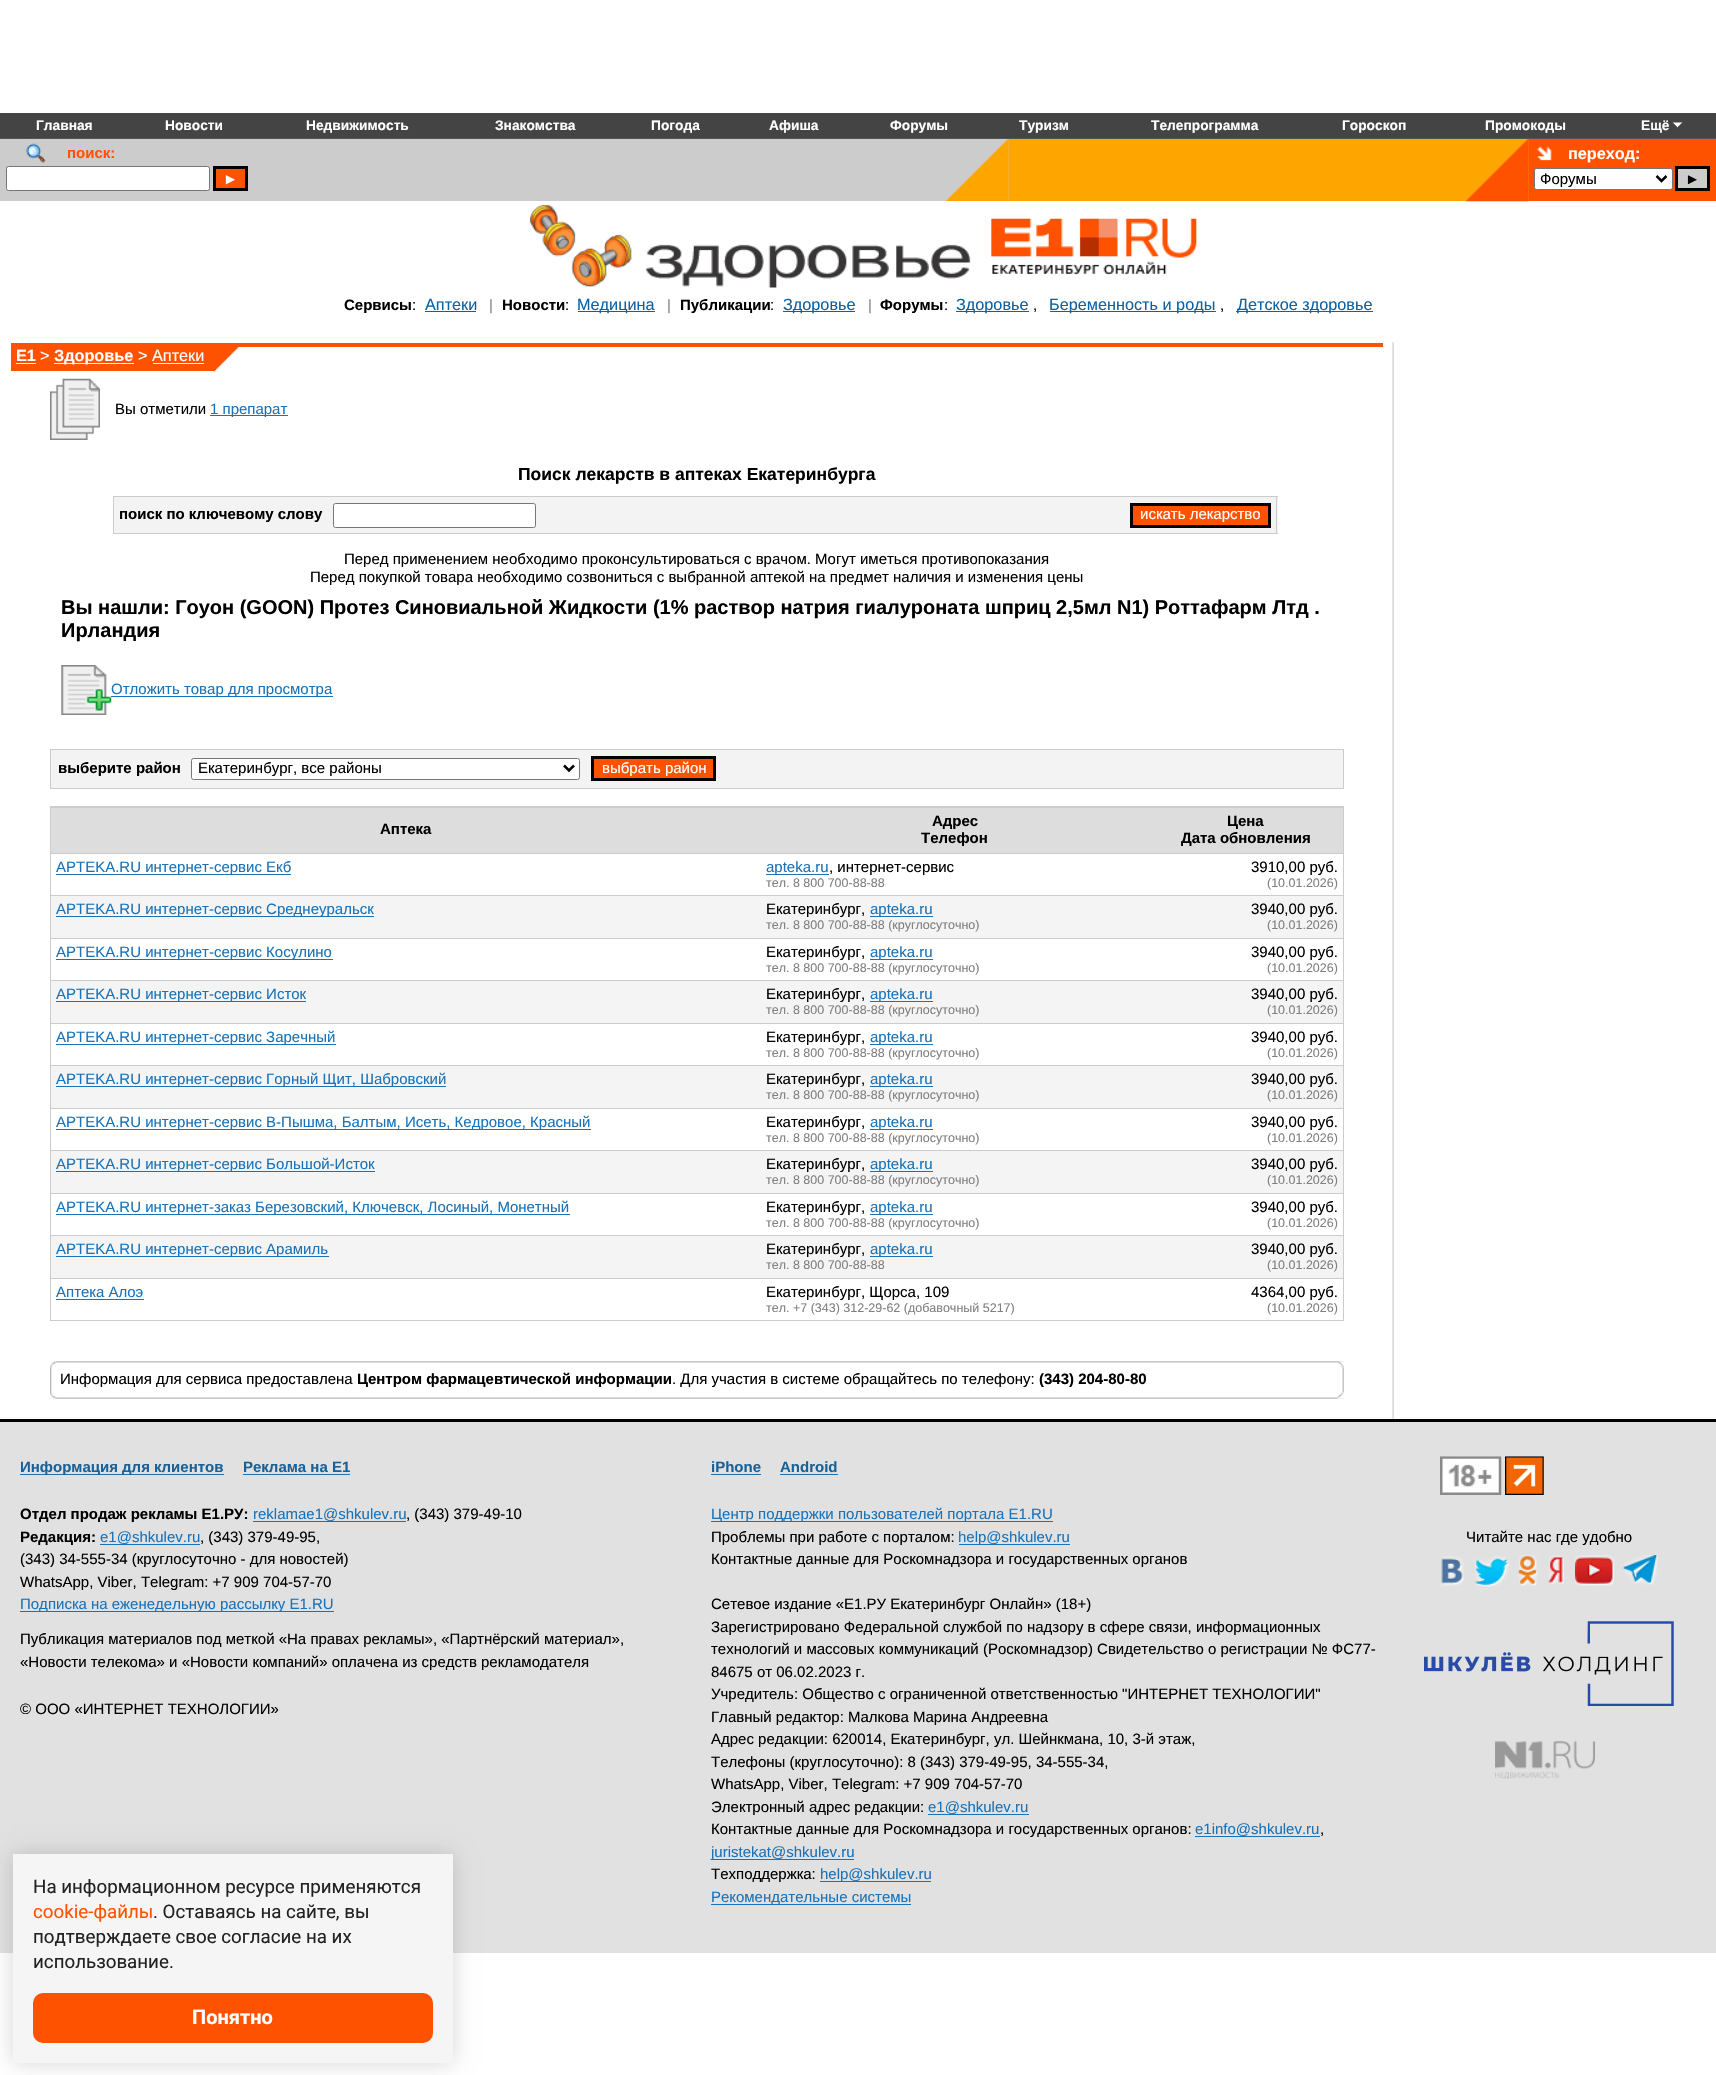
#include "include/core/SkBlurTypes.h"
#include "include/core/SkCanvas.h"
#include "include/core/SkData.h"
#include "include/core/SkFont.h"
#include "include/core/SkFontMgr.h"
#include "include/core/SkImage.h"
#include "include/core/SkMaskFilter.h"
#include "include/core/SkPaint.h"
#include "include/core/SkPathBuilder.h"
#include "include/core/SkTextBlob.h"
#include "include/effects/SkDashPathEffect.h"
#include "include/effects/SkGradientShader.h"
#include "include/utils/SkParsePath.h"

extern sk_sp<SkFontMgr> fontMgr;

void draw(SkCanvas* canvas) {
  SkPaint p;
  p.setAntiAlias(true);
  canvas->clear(SK_ColorWHITE);
  p.setColor(SkColorSetRGB(68, 68, 68));
  canvas->drawRect(SkRect::MakeLTRB(0, 113, 1716, 138), p);
  p.setColor(SkColorSetRGB(84, 84, 84));
  canvas->drawRect(SkRect::MakeLTRB(0, 138, 1716, 139), p);
  p.setColor(SK_ColorWHITE);
  canvas->drawPath(SkPathBuilder().moveTo(1672.5f, 122.5f).lineTo(1682.5f, 122.5f).lineTo(1677.5f, 127.5f).close().detach(), p);
  p.setColor(SkColorSetRGB(67, 67, 67));
  canvas->drawPath(SkPathBuilder().moveTo(1682.5f, 122.5f).lineTo(1682.5f, 127.5f).lineTo(1677.5f, 127.5f).close().detach(), p);
  canvas->drawPath(SkPathBuilder().moveTo(1672.5f, 127.5f).lineTo(1672.5f, 122.5f).lineTo(1677.5f, 127.5f).close().detach(), p);
  p.setColor(SkColorSetRGB(204, 204, 204));
  canvas->drawRect(SkRect::MakeLTRB(0, 139, 1009, 201), p);
  canvas->drawImageRect(SkImages::DeferredFromEncodedData(SkData::MakeFromFileName("images/1.png")), SkRect::MakeLTRB(946, 139, 1009, 202), SkSamplingOptions());
  p.setColor(SkColorSetRGB(255, 165, 0));
  canvas->drawRect(SkRect::MakeLTRB(1009, 139, 1529, 201), p);
  canvas->drawImageRect(SkImages::DeferredFromEncodedData(SkData::MakeFromFileName("images/2.png")), SkRect::MakeLTRB(26, 143, 46, 163), SkSamplingOptions());
  p.setColor(SK_ColorWHITE);
  canvas->drawRoundRect(SkRect::MakeLTRB(6.5f, 166.5f, 209.5f, 190.5f), 2, 2, p);
  p.setStyle(SkPaint::kStroke_Style);
  p.setStrokeWidth(1);
  p.setColor(SkColorSetRGB(118, 118, 118));
  canvas->drawRoundRect(SkRect::MakeLTRB(6.5f, 166.5f, 209.5f, 190.5f), 2, 2, p);
  p.setStyle(SkPaint::kFill_Style);
  p.setColor(SkColorSetRGB(255, 82, 0));
  canvas->drawRect(SkRect::MakeLTRB(214.5f, 167.5f, 246.5f, 189.5f), p);
  p.setStyle(SkPaint::kStroke_Style);
  p.setStrokeWidth(3);
  p.setColor(SK_ColorBLACK);
  canvas->drawRect(SkRect::MakeLTRB(214.5f, 167.5f, 246.5f, 189.5f), p);
  canvas->drawImageRect(SkImages::DeferredFromEncodedData(SkData::MakeFromFileName("images/3.png")), SkRect::MakeLTRB(1466, 139, 1529, 202), SkSamplingOptions());
  p.setStyle(SkPaint::kFill_Style);
  p.setColor(SkColorSetRGB(255, 82, 0));
  canvas->drawRect(SkRect::MakeLTRB(1529, 139, 1716, 201), p);
  canvas->drawImageRect(SkImages::DeferredFromEncodedData(SkData::MakeFromFileName("images/4.png")), SkRect::MakeLTRB(1537, 146, 1552, 161), SkSamplingOptions());
  p.setColor(SK_ColorWHITE);
  canvas->drawRoundRect(SkRect::MakeLTRB(1534.5f, 168.5f, 1672.5f, 189.5f), 2, 2, p);
  p.setStyle(SkPaint::kStroke_Style);
  p.setStrokeWidth(1);
  p.setColor(SkColorSetRGB(118, 118, 118));
  canvas->drawRoundRect(SkRect::MakeLTRB(1534.5f, 168.5f, 1672.5f, 189.5f), 2, 2, p);
  p.setStrokeWidth(2.5f);
  p.setColor(SK_ColorBLACK);
  canvas->drawPath(SkPathBuilder().moveTo(1656.5f, 176).lineTo(1661.5f, 181).lineTo(1666.5f, 176).detach(), p);
  p.setStyle(SkPaint::kFill_Style);
  p.setColor(SkColorSetRGB(204, 204, 204));
  canvas->drawRect(SkRect::MakeLTRB(1676.5f, 167.5f, 1708.5f, 189.5f), p);
  p.setStyle(SkPaint::kStroke_Style);
  p.setStrokeWidth(3);
  p.setColor(SK_ColorBLACK);
  canvas->drawRect(SkRect::MakeLTRB(1676.5f, 167.5f, 1708.5f, 189.5f), p);
  canvas->drawImageRect(SkImages::DeferredFromEncodedData(SkData::MakeFromFileName("images/5.png")), SkRect::MakeLTRB(529, 204, 632, 287), SkSamplingOptions());
  canvas->drawImageRect(SkImages::DeferredFromEncodedData(SkData::MakeFromFileName("images/6.png")), SkRect::MakeLTRB(646, 201, 987, 288), SkSamplingOptions());
  canvas->drawImageRect(SkImages::DeferredFromEncodedData(SkData::MakeFromFileName("images/7.png")), SkRect::MakeLTRB(986, 201, 1197, 275), SkSamplingOptions());
  p.setStyle(SkPaint::kFill_Style);
  p.setColor(SkColorSetRGB(10, 98, 166));
  canvas->drawRect(SkRect::MakeLTRB(425, 311, 476, 312), p);
  canvas->drawRect(SkRect::MakeLTRB(578, 311, 655, 312), p);
  canvas->drawRect(SkRect::MakeLTRB(783, 311, 855, 312), p);
  canvas->drawRect(SkRect::MakeLTRB(956, 311, 1029, 312), p);
  canvas->drawRect(SkRect::MakeLTRB(1050, 311, 1216, 312), p);
  canvas->drawRect(SkRect::MakeLTRB(1236, 311, 1373, 312), p);
  p.setColor(SkColorSetRGB(255, 82, 0));
  canvas->drawRect(SkRect::MakeLTRB(11, 343, 1383, 347), p);
  canvas->drawRect(SkRect::MakeLTRB(11, 347, 214, 371), p);
  p.setColor(SK_ColorWHITE);
  canvas->drawRect(SkRect::MakeLTRB(16, 363, 36, 364), p);
  canvas->drawRect(SkRect::MakeLTRB(54, 363, 134, 364), p);
  canvas->drawRect(SkRect::MakeLTRB(153, 363, 204, 364), p);
  canvas->drawImageRect(SkImages::DeferredFromEncodedData(SkData::MakeFromFileName("images/8.png")), SkRect::MakeLTRB(213, 347, 239, 372), SkSamplingOptions());
  canvas->drawImageRect(SkImages::DeferredFromEncodedData(SkData::MakeFromFileName("images/9.png")), SkRect::MakeLTRB(50, 378, 100, 440), SkSamplingOptions());
  p.setColor(SkColorSetRGB(26, 115, 185));
  canvas->drawRect(SkRect::MakeLTRB(210, 415, 288, 416), p);
  p.setColor(SkColorSetRGB(243, 243, 243));
  canvas->drawRect(SkRect::MakeLTRB(114, 497, 1278, 533), p);
  p.setColor(SkColorSetRGB(204, 204, 204));
  canvas->drawRect(SkRect::MakeLTRB(113, 496, 1278, 497), p);
  canvas->drawRect(SkRect::MakeLTRB(1276, 496, 1277, 534), p);
  canvas->drawRect(SkRect::MakeLTRB(113, 533, 1278, 534), p);
  canvas->drawRect(SkRect::MakeLTRB(113, 496, 114, 534), p);
  p.setColor(SK_ColorWHITE);
  canvas->drawRoundRect(SkRect::MakeLTRB(333.5f, 503.5f, 535.5f, 527.5f), 2, 2, p);
  p.setStyle(SkPaint::kStroke_Style);
  p.setStrokeWidth(1);
  p.setColor(SkColorSetRGB(118, 118, 118));
  canvas->drawRoundRect(SkRect::MakeLTRB(333.5f, 503.5f, 535.5f, 527.5f), 2, 2, p);
  p.setStyle(SkPaint::kFill_Style);
  p.setColor(SkColorSetRGB(255, 82, 0));
  canvas->drawRect(SkRect::MakeLTRB(1131.5f, 504.5f, 1269.5f, 526.5f), p);
  p.setStyle(SkPaint::kStroke_Style);
  p.setStrokeWidth(3);
  p.setColor(SK_ColorBLACK);
  canvas->drawRect(SkRect::MakeLTRB(1131.5f, 504.5f, 1269.5f, 526.5f), p);
  canvas->drawImageRect(SkImages::DeferredFromEncodedData(SkData::MakeFromFileName("images/10.png")), SkRect::MakeLTRB(61, 665, 112, 715), SkSamplingOptions());
  p.setStyle(SkPaint::kFill_Style);
  p.setColor(SkColorSetRGB(26, 115, 185));
  canvas->drawRect(SkRect::MakeLTRB(111, 696, 333, 697), p);
  p.setColor(SkColorSetRGB(204, 204, 204));
  canvas->drawRect(SkRect::MakeLTRB(50, 749, 1344, 750), p);
  canvas->drawRect(SkRect::MakeLTRB(1343, 749, 1344, 789), p);
  canvas->drawRect(SkRect::MakeLTRB(50, 788, 1344, 789), p);
  canvas->drawRect(SkRect::MakeLTRB(50, 749, 51, 789), p);
  p.setColor(SkColorSetRGB(243, 243, 243));
  canvas->drawRect(SkRect::MakeLTRB(51, 750, 1343, 788), p);
  p.setColor(SK_ColorWHITE);
  canvas->drawRoundRect(SkRect::MakeLTRB(191.5f, 758.5f, 579.5f, 779.5f), 2, 2, p);
  p.setStyle(SkPaint::kStroke_Style);
  p.setStrokeWidth(1);
  p.setColor(SkColorSetRGB(118, 118, 118));
  canvas->drawRoundRect(SkRect::MakeLTRB(191.5f, 758.5f, 579.5f, 779.5f), 2, 2, p);
  p.setStrokeWidth(2.5f);
  p.setColor(SK_ColorBLACK);
  canvas->drawPath(SkPathBuilder().moveTo(564, 765.5f).lineTo(569, 770.5f).lineTo(574, 765.5f).detach(), p);
  p.setStyle(SkPaint::kFill_Style);
  p.setColor(SkColorSetRGB(255, 82, 0));
  canvas->drawRect(SkRect::MakeLTRB(592.5f, 757.5f, 714.5f, 779.5f), p);
  p.setStyle(SkPaint::kStroke_Style);
  p.setStrokeWidth(3);
  p.setColor(SK_ColorBLACK);
  canvas->drawRect(SkRect::MakeLTRB(592.5f, 757.5f, 714.5f, 779.5f), p);
  p.setStyle(SkPaint::kFill_Style);
  p.setColor(SkColorSetRGB(204, 204, 204));
  canvas->drawRect(SkRect::MakeLTRB(50, 806, 1344, 1321), p);
  p.setColor(SkColorSetRGB(221, 221, 221));
  canvas->drawRect(SkRect::MakeLTRB(51, 808, 1343, 853), p);
  p.setColor(SK_ColorWHITE);
  canvas->drawRect(SkRect::MakeLTRB(51, 854, 1343, 895), p);
  p.setColor(SkColorSetRGB(26, 115, 185));
  canvas->drawRect(SkRect::MakeLTRB(56, 874, 291, 875), p);
  canvas->drawRect(SkRect::MakeLTRB(766, 874, 829, 875), p);
  p.setColor(SkColorSetRGB(244, 244, 244));
  canvas->drawRect(SkRect::MakeLTRB(51, 896, 1343, 938), p);
  p.setColor(SkColorSetRGB(26, 115, 185));
  canvas->drawRect(SkRect::MakeLTRB(56, 916, 374, 917), p);
  canvas->drawRect(SkRect::MakeLTRB(870, 916, 933, 917), p);
  p.setColor(SK_ColorWHITE);
  canvas->drawRect(SkRect::MakeLTRB(51, 939, 1343, 980), p);
  p.setColor(SkColorSetRGB(26, 115, 185));
  canvas->drawRect(SkRect::MakeLTRB(56, 959, 333, 960), p);
  canvas->drawRect(SkRect::MakeLTRB(870, 959, 933, 960), p);
  p.setColor(SkColorSetRGB(244, 244, 244));
  canvas->drawRect(SkRect::MakeLTRB(51, 981, 1343, 1023), p);
  p.setColor(SkColorSetRGB(26, 115, 185));
  canvas->drawRect(SkRect::MakeLTRB(56, 1001, 306, 1002), p);
  canvas->drawRect(SkRect::MakeLTRB(870, 1001, 933, 1002), p);
  p.setColor(SK_ColorWHITE);
  canvas->drawRect(SkRect::MakeLTRB(51, 1024, 1343, 1065), p);
  p.setColor(SkColorSetRGB(26, 115, 185));
  canvas->drawRect(SkRect::MakeLTRB(56, 1044, 336, 1045), p);
  canvas->drawRect(SkRect::MakeLTRB(870, 1044, 933, 1045), p);
  p.setColor(SkColorSetRGB(244, 244, 244));
  canvas->drawRect(SkRect::MakeLTRB(51, 1066, 1343, 1108), p);
  p.setColor(SkColorSetRGB(26, 115, 185));
  canvas->drawRect(SkRect::MakeLTRB(56, 1086, 446, 1087), p);
  canvas->drawRect(SkRect::MakeLTRB(870, 1086, 933, 1087), p);
  p.setColor(SK_ColorWHITE);
  canvas->drawRect(SkRect::MakeLTRB(51, 1109, 1343, 1150), p);
  p.setColor(SkColorSetRGB(26, 115, 185));
  canvas->drawRect(SkRect::MakeLTRB(56, 1129, 591, 1130), p);
  canvas->drawRect(SkRect::MakeLTRB(870, 1129, 933, 1130), p);
  p.setColor(SkColorSetRGB(244, 244, 244));
  canvas->drawRect(SkRect::MakeLTRB(51, 1151, 1343, 1193), p);
  p.setColor(SkColorSetRGB(26, 115, 185));
  canvas->drawRect(SkRect::MakeLTRB(56, 1171, 375, 1172), p);
  canvas->drawRect(SkRect::MakeLTRB(870, 1171, 933, 1172), p);
  p.setColor(SK_ColorWHITE);
  canvas->drawRect(SkRect::MakeLTRB(51, 1194, 1343, 1235), p);
  p.setColor(SkColorSetRGB(26, 115, 185));
  canvas->drawRect(SkRect::MakeLTRB(56, 1214, 570, 1215), p);
  canvas->drawRect(SkRect::MakeLTRB(870, 1214, 933, 1215), p);
  p.setColor(SkColorSetRGB(244, 244, 244));
  canvas->drawRect(SkRect::MakeLTRB(51, 1236, 1343, 1278), p);
  p.setColor(SkColorSetRGB(26, 115, 185));
  canvas->drawRect(SkRect::MakeLTRB(56, 1256, 329, 1257), p);
  canvas->drawRect(SkRect::MakeLTRB(870, 1256, 933, 1257), p);
  p.setColor(SK_ColorWHITE);
  canvas->drawRect(SkRect::MakeLTRB(51, 1279, 1343, 1320), p);
  p.setColor(SkColorSetRGB(26, 115, 185));
  canvas->drawRect(SkRect::MakeLTRB(56, 1299, 144, 1300), p);
  canvas->drawImageRect(SkImages::DeferredFromEncodedData(SkData::MakeFromFileName("images/11.png")), SkRect::MakeLTRB(50, 1361, 1344, 1399), SkSamplingOptions());
  canvas->drawImageRect(SkImages::DeferredFromEncodedData(SkData::MakeFromFileName("images/12.png")), SkRect::MakeLTRB(1337, 1361, 1344, 1368), SkSamplingOptions());
  canvas->drawImageRect(SkImages::DeferredFromEncodedData(SkData::MakeFromFileName("images/13.png")), SkRect::MakeLTRB(1342, 1367, 1344, 1393), SkSamplingOptions());
  canvas->drawImageRect(SkImages::DeferredFromEncodedData(SkData::MakeFromFileName("images/14.png")), SkRect::MakeLTRB(50, 1392, 1344, 1399), SkSamplingOptions());
  canvas->drawImageRect(SkImages::DeferredFromEncodedData(SkData::MakeFromFileName("images/15.png")), SkRect::MakeLTRB(1337, 1392, 1344, 1399), SkSamplingOptions());
  canvas->drawImageRect(SkImages::DeferredFromEncodedData(SkData::MakeFromFileName("images/16.png")), SkRect::MakeLTRB(1392, 342, 1394, 1419), SkSamplingOptions());
  p.setColor(SkColorSetRGB(225, 225, 225));
  canvas->drawRect(SkRect::MakeLTRB(0, 1422, 1716, 1953), p);
  p.setColor(SK_ColorBLACK);
  canvas->drawRect(SkRect::MakeLTRB(0, 1419, 1716, 1422), p);
  p.setColor(SkColorSetRGB(26, 115, 185));
  canvas->drawRect(SkRect::MakeLTRB(20, 1474, 224, 1475), p);
  canvas->drawRect(SkRect::MakeLTRB(243, 1474, 350, 1475), p);
  canvas->drawRect(SkRect::MakeLTRB(253, 1521, 406, 1522), p);
  canvas->drawRect(SkRect::MakeLTRB(100, 1544, 200, 1545), p);
  canvas->drawRect(SkRect::MakeLTRB(20, 1611, 334, 1612), p);
  canvas->drawRect(SkRect::MakeLTRB(711, 1474, 761, 1475), p);
  canvas->drawRect(SkRect::MakeLTRB(780, 1474, 838, 1475), p);
  canvas->drawRect(SkRect::MakeLTRB(711, 1521, 1053, 1522), p);
  canvas->drawRect(SkRect::MakeLTRB(959, 1544, 1070, 1545), p);
  canvas->drawRect(SkRect::MakeLTRB(928, 1814, 1029, 1815), p);
  canvas->drawRect(SkRect::MakeLTRB(1195, 1836, 1320, 1837), p);
  canvas->drawRect(SkRect::MakeLTRB(711, 1859, 854, 1860), p);
  canvas->drawRect(SkRect::MakeLTRB(820, 1881, 931, 1882), p);
  canvas->drawRect(SkRect::MakeLTRB(711, 1904, 911, 1905), p);
  canvas->drawImageRect(SkImages::DeferredFromEncodedData(SkData::MakeFromFileName("images/17.png")), SkRect::MakeLTRB(1440, 1456, 1502, 1495), SkSamplingOptions());
  canvas->drawImageRect(SkImages::DeferredFromEncodedData(SkData::MakeFromFileName("images/18.png")), SkRect::MakeLTRB(1505, 1456, 1544, 1495), SkSamplingOptions());
  canvas->drawImageRect(SkImages::DeferredFromEncodedData(SkData::MakeFromFileName("images/19.png")), SkRect::MakeLTRB(1441, 1556, 1464, 1586), SkSamplingOptions());
  canvas->drawImageRect(SkImages::DeferredFromEncodedData(SkData::MakeFromFileName("images/20.png")), SkRect::MakeLTRB(1475, 1556, 1509, 1587), SkSamplingOptions());
  canvas->drawImageRect(SkImages::DeferredFromEncodedData(SkData::MakeFromFileName("images/21.png")), SkRect::MakeLTRB(1518, 1555, 1538, 1586), SkSamplingOptions());
  canvas->drawImageRect(SkImages::DeferredFromEncodedData(SkData::MakeFromFileName("images/22.png")), SkRect::MakeLTRB(1548, 1555, 1564, 1584), SkSamplingOptions());
  canvas->drawImageRect(SkImages::DeferredFromEncodedData(SkData::MakeFromFileName("images/23.png")), SkRect::MakeLTRB(1575, 1555, 1614, 1586), SkSamplingOptions());
  canvas->drawImageRect(SkImages::DeferredFromEncodedData(SkData::MakeFromFileName("images/24.png")), SkRect::MakeLTRB(1623, 1555, 1658, 1585), SkSamplingOptions());
  canvas->drawImageRect(SkImages::DeferredFromEncodedData(SkData::MakeFromFileName("images/25.png")), SkRect::MakeLTRB(1424, 1621, 1674, 1706), SkSamplingOptions());
  canvas->drawImageRect(SkImages::DeferredFromEncodedData(SkData::MakeFromFileName("images/26.png")), SkRect::MakeLTRB(1495, 1741, 1595, 1779), SkSamplingOptions());
  p.setColor(SkColorSetARGB(41, 0, 0, 0));
  p.setMaskFilter(SkMaskFilter::MakeBlur(kNormal_SkBlurStyle, 10));
  canvas->drawRect(SkRect::MakeLTRB(13, 1854, 453, 2063), p);
  p.setMaskFilter(nullptr);
  p.setColor(SkColorSetRGB(245, 245, 245));
  canvas->drawRect(SkRect::MakeLTRB(13, 1854, 453, 2063), p);
  p.setColor(SkColorSetRGB(255, 82, 0));
  canvas->drawRoundRect(SkRect::MakeLTRB(33, 1993, 433, 2043), 10, 10, p);
  SkFont font1(fontMgr->matchFamilyStyle("Liberation Sans", SkFontStyle::Bold()), 13.75f);
  font1.setSubpixel(true);
  p.setColor(SK_ColorWHITE);
  canvas->drawString("Главная", 36, 130, font1, p);
  canvas->drawString("Новости", 165, 130, font1, p);
  canvas->drawString("Недвижимость", 306, 130, font1, p);
  canvas->drawString("Знакомства", 495, 130, font1, p);
  canvas->drawString("Погода", 651, 130, font1, p);
  canvas->drawString("Афиша", 769, 130, font1, p);
  canvas->drawString("Форумы", 890, 130, font1, p);
  canvas->drawString("Туризм", 1019, 130, font1, p);
  canvas->drawString("Телепрограмма", 1151, 130, font1, p);
  canvas->drawString("Гороскоп", 1342, 130, font1, p);
  canvas->drawString("Промокоды", 1485, 130, font1, p);
  canvas->drawString("Ещё", 1641, 130, font1, p);
  SkFont font2(fontMgr->matchFamilyStyle("Liberation Sans", SkFontStyle::Bold()), 15);
  font2.setSubpixel(true);
  p.setColor(SkColorSetRGB(255, 82, 0));
  canvas->drawString("поиск:", 67, 158, font2, p);
  SkFont font3(fontMgr->matchFamilyStyle("Liberation Sans", SkFontStyle::Normal()), 15);
  font3.setSubpixel(true);
  p.setColor(SK_ColorWHITE);
  canvas->drawString("►", 223, 184, font3, p);
  SkFont font4(fontMgr->matchFamilyStyle("Liberation Sans", SkFontStyle::Bold()), 16.25f);
  font4.setSubpixel(true);
  canvas->drawString("переход:", 1568, 159, font4, p);
  p.setColor(SK_ColorBLACK);
  canvas->drawString("Форумы", 1540, 184, font3, p);
  canvas->drawString("►", 1685, 184, font3, p);
  canvas->drawString("Сервисы", 344, 310, font2, p);
  canvas->drawString(":", 412, 310, font3, p);
  SkFont font5(fontMgr->matchFamilyStyle("Liberation Sans", SkFontStyle::Normal()), 16.25f);
  font5.setSubpixel(true);
  p.setColor(SkColorSetRGB(10, 98, 166));
  canvas->drawString("Аптеки", 425, 310, font5, p);
  p.setColor(SkColorSetRGB(134, 134, 134));
  canvas->drawString("|", 489, 310, font3, p);
  p.setColor(SK_ColorBLACK);
  canvas->drawString("Новости", 502, 310, font2, p);
  canvas->drawString(":", 565, 310, font3, p);
  p.setColor(SkColorSetRGB(10, 98, 166));
  canvas->drawString("Медицина", 577, 310, font5, p);
  p.setColor(SkColorSetRGB(134, 134, 134));
  canvas->drawString("|", 667, 310, font3, p);
  p.setColor(SK_ColorBLACK);
  canvas->drawString("Публикации", 680, 310, font2, p);
  canvas->drawString(":", 770, 310, font3, p);
  p.setColor(SkColorSetRGB(10, 98, 166));
  canvas->drawString("Здоровье", 783, 310, font5, p);
  p.setColor(SkColorSetRGB(134, 134, 134));
  canvas->drawString("|", 868, 310, font3, p);
  p.setColor(SK_ColorBLACK);
  canvas->drawString("Форумы", 880, 310, font2, p);
  canvas->drawString(":", 944, 310, font3, p);
  p.setColor(SkColorSetRGB(10, 98, 166));
  canvas->drawString("Здоровье", 956, 310, font5, p);
  p.setColor(SK_ColorBLACK);
  canvas->drawString(",", 1033, 310, font3, p);
  p.setColor(SkColorSetRGB(10, 98, 166));
  canvas->drawString("Беременность и роды", 1049, 310, font5, p);
  p.setColor(SK_ColorBLACK);
  canvas->drawString(",", 1220, 310, font3, p);
  p.setColor(SkColorSetRGB(10, 98, 166));
  canvas->drawString("Детское здоровье", 1237, 310, font5, p);
  p.setColor(SK_ColorWHITE);
  canvas->drawString("E1", 16, 361, font4, p);
  canvas->drawString(">", 40, 361, font5, p);
  canvas->drawString("Здоровье", 54, 361, font4, p);
  canvas->drawString("> Аптеки", 138, 361, font5, p);
  p.setColor(SK_ColorBLACK);
  canvas->drawString("Вы отметили", 115, 414, font3, p);
  p.setColor(SkColorSetRGB(26, 115, 185));
  canvas->drawString("1 препарат", 210, 414, font3, p);
  SkFont font6(fontMgr->matchFamilyStyle("Liberation Sans", SkFontStyle::Bold()), 17.5f);
  font6.setSubpixel(true);
  p.setColor(SK_ColorBLACK);
  canvas->drawString("Поиск лекарств в аптеках Екатеринбурга", 518, 480, font6, p);
  canvas->drawString("поиск по ключевому слову", 119, 519, font2, p);
  p.setColor(SK_ColorWHITE);
  canvas->drawString("искать лекарство", 1140, 519, font3, p);
  p.setColor(SK_ColorBLACK);
  canvas->drawString("Перед применением необходимо проконсультироваться с врачом. Могут иметься противопоказания", 344, 564, font3, p);
  canvas->drawString("Перед покупкой товара необходимо созвониться с выбранной аптекой на предмет наличия и изменения цены", 310, 582, font3, p);
  SkFont font7(fontMgr->matchFamilyStyle("Liberation Sans", SkFontStyle::Bold()), 20);
  font7.setSubpixel(true);
  canvas->drawString("Вы нашли: Гоуон (GOON) Протез Синовиальной Жидкости (1% раствор натрия гиалуроната шприц 2,5мл N1) Роттафарм Лтд .", 61, 614, font7, p);
  canvas->drawString("Ирландия", 61, 637, font7, p);
  p.setColor(SkColorSetRGB(26, 115, 185));
  canvas->drawString("Отложить товар для просмотра", 111, 694, font3, p);
  p.setColor(SK_ColorBLACK);
  canvas->drawString("выберите район", 58, 773, font2, p);
  canvas->drawString("Екатеринбург, все районы", 198, 773, font3, p);
  p.setColor(SK_ColorWHITE);
  canvas->drawString("выбрать район", 602, 773, font3, p);
  p.setColor(SK_ColorBLACK);
  canvas->drawString("Аптека", 380, 834, font2, p);
  canvas->drawString("Адрес", 932, 826, font2, p);
  canvas->drawString("Телефон", 921, 843, font2, p);
  canvas->drawString("Цена", 1227, 826, font2, p);
  canvas->drawString("Дата обновления", 1181, 843, font2, p);
  p.setColor(SkColorSetRGB(26, 115, 185));
  canvas->drawString("APTEKA.RU интернет-сервис Екб", 56, 872, font3, p);
  canvas->drawString("apteka.ru", 766, 872, font3, p);
  p.setColor(SK_ColorBLACK);
  canvas->drawString(", интернет-сервис", 829, 872, font3, p);
  SkFont font8(fontMgr->matchFamilyStyle("Liberation Sans", SkFontStyle::Normal()), 12.5f);
  font8.setSubpixel(true);
  p.setColor(SkColorSetRGB(128, 128, 128));
  canvas->drawString("тел. 8 800 700-88-88", 766, 887, font8, p);
  p.setColor(SK_ColorBLACK);
  canvas->drawString("3910,00 руб.", 1251, 872, font3, p);
  p.setColor(SkColorSetRGB(128, 128, 128));
  canvas->drawString("(10.01.2026)", 1267, 887, font8, p);
  p.setColor(SkColorSetRGB(26, 115, 185));
  canvas->drawString("APTEKA.RU интернет-сервис Среднеуральск", 56, 914, font3, p);
  p.setColor(SK_ColorBLACK);
  canvas->drawString("Екатеринбург,", 766, 914, font3, p);
  p.setColor(SkColorSetRGB(26, 115, 185));
  canvas->drawString("apteka.ru", 870, 914, font3, p);
  p.setColor(SkColorSetRGB(128, 128, 128));
  canvas->drawString("тел. 8 800 700-88-88 (круглосуточно)", 766, 929, font8, p);
  p.setColor(SK_ColorBLACK);
  canvas->drawString("3940,00 руб.", 1251, 914, font3, p);
  p.setColor(SkColorSetRGB(128, 128, 128));
  canvas->drawString("(10.01.2026)", 1267, 929, font8, p);
  p.setColor(SkColorSetRGB(26, 115, 185));
  canvas->drawString("APTEKA.RU интернет-сервис Косулино", 56, 957, font3, p);
  p.setColor(SK_ColorBLACK);
  canvas->drawString("Екатеринбург,", 766, 957, font3, p);
  p.setColor(SkColorSetRGB(26, 115, 185));
  canvas->drawString("apteka.ru", 870, 957, font3, p);
  p.setColor(SkColorSetRGB(128, 128, 128));
  canvas->drawString("тел. 8 800 700-88-88 (круглосуточно)", 766, 972, font8, p);
  p.setColor(SK_ColorBLACK);
  canvas->drawString("3940,00 руб.", 1251, 957, font3, p);
  p.setColor(SkColorSetRGB(128, 128, 128));
  canvas->drawString("(10.01.2026)", 1267, 972, font8, p);
  p.setColor(SkColorSetRGB(26, 115, 185));
  canvas->drawString("APTEKA.RU интернет-сервис Исток", 56, 999, font3, p);
  p.setColor(SK_ColorBLACK);
  canvas->drawString("Екатеринбург,", 766, 999, font3, p);
  p.setColor(SkColorSetRGB(26, 115, 185));
  canvas->drawString("apteka.ru", 870, 999, font3, p);
  p.setColor(SkColorSetRGB(128, 128, 128));
  canvas->drawString("тел. 8 800 700-88-88 (круглосуточно)", 766, 1014, font8, p);
  p.setColor(SK_ColorBLACK);
  canvas->drawString("3940,00 руб.", 1251, 999, font3, p);
  p.setColor(SkColorSetRGB(128, 128, 128));
  canvas->drawString("(10.01.2026)", 1267, 1014, font8, p);
  p.setColor(SkColorSetRGB(26, 115, 185));
  canvas->drawString("APTEKA.RU интернет-сервис Заречный", 56, 1042, font3, p);
  p.setColor(SK_ColorBLACK);
  canvas->drawString("Екатеринбург,", 766, 1042, font3, p);
  p.setColor(SkColorSetRGB(26, 115, 185));
  canvas->drawString("apteka.ru", 870, 1042, font3, p);
  p.setColor(SkColorSetRGB(128, 128, 128));
  canvas->drawString("тел. 8 800 700-88-88 (круглосуточно)", 766, 1057, font8, p);
  p.setColor(SK_ColorBLACK);
  canvas->drawString("3940,00 руб.", 1251, 1042, font3, p);
  p.setColor(SkColorSetRGB(128, 128, 128));
  canvas->drawString("(10.01.2026)", 1267, 1057, font8, p);
  p.setColor(SkColorSetRGB(26, 115, 185));
  canvas->drawString("APTEKA.RU интернет-сервис Горный Щит, Шабровский", 56, 1084, font3, p);
  p.setColor(SK_ColorBLACK);
  canvas->drawString("Екатеринбург,", 766, 1084, font3, p);
  p.setColor(SkColorSetRGB(26, 115, 185));
  canvas->drawString("apteka.ru", 870, 1084, font3, p);
  p.setColor(SkColorSetRGB(128, 128, 128));
  canvas->drawString("тел. 8 800 700-88-88 (круглосуточно)", 766, 1099, font8, p);
  p.setColor(SK_ColorBLACK);
  canvas->drawString("3940,00 руб.", 1251, 1084, font3, p);
  p.setColor(SkColorSetRGB(128, 128, 128));
  canvas->drawString("(10.01.2026)", 1267, 1099, font8, p);
  p.setColor(SkColorSetRGB(26, 115, 185));
  canvas->drawString("APTEKA.RU интернет-сервис В-Пышма, Балтым, Исеть, Кедровое, Красный", 56, 1127, font3, p);
  p.setColor(SK_ColorBLACK);
  canvas->drawString("Екатеринбург,", 766, 1127, font3, p);
  p.setColor(SkColorSetRGB(26, 115, 185));
  canvas->drawString("apteka.ru", 870, 1127, font3, p);
  p.setColor(SkColorSetRGB(128, 128, 128));
  canvas->drawString("тел. 8 800 700-88-88 (круглосуточно)", 766, 1142, font8, p);
  p.setColor(SK_ColorBLACK);
  canvas->drawString("3940,00 руб.", 1251, 1127, font3, p);
  p.setColor(SkColorSetRGB(128, 128, 128));
  canvas->drawString("(10.01.2026)", 1267, 1142, font8, p);
  p.setColor(SkColorSetRGB(26, 115, 185));
  canvas->drawString("APTEKA.RU интернет-сервис Большой-Исток", 56, 1169, font3, p);
  p.setColor(SK_ColorBLACK);
  canvas->drawString("Екатеринбург,", 766, 1169, font3, p);
  p.setColor(SkColorSetRGB(26, 115, 185));
  canvas->drawString("apteka.ru", 870, 1169, font3, p);
  p.setColor(SkColorSetRGB(128, 128, 128));
  canvas->drawString("тел. 8 800 700-88-88 (круглосуточно)", 766, 1184, font8, p);
  p.setColor(SK_ColorBLACK);
  canvas->drawString("3940,00 руб.", 1251, 1169, font3, p);
  p.setColor(SkColorSetRGB(128, 128, 128));
  canvas->drawString("(10.01.2026)", 1267, 1184, font8, p);
  p.setColor(SkColorSetRGB(26, 115, 185));
  canvas->drawString("APTEKA.RU интернет-заказ Березовский, Ключевск, Лосиный, Монетный", 56, 1212, font3, p);
  p.setColor(SK_ColorBLACK);
  canvas->drawString("Екатеринбург,", 766, 1212, font3, p);
  p.setColor(SkColorSetRGB(26, 115, 185));
  canvas->drawString("apteka.ru", 870, 1212, font3, p);
  p.setColor(SkColorSetRGB(128, 128, 128));
  canvas->drawString("тел. 8 800 700-88-88 (круглосуточно)", 766, 1227, font8, p);
  p.setColor(SK_ColorBLACK);
  canvas->drawString("3940,00 руб.", 1251, 1212, font3, p);
  p.setColor(SkColorSetRGB(128, 128, 128));
  canvas->drawString("(10.01.2026)", 1267, 1227, font8, p);
  p.setColor(SkColorSetRGB(26, 115, 185));
  canvas->drawString("APTEKA.RU интернет-сервис Арамиль", 56, 1254, font3, p);
  p.setColor(SK_ColorBLACK);
  canvas->drawString("Екатеринбург,", 766, 1254, font3, p);
  p.setColor(SkColorSetRGB(26, 115, 185));
  canvas->drawString("apteka.ru", 870, 1254, font3, p);
  p.setColor(SkColorSetRGB(128, 128, 128));
  canvas->drawString("тел. 8 800 700-88-88", 766, 1269, font8, p);
  p.setColor(SK_ColorBLACK);
  canvas->drawString("3940,00 руб.", 1251, 1254, font3, p);
  p.setColor(SkColorSetRGB(128, 128, 128));
  canvas->drawString("(10.01.2026)", 1267, 1269, font8, p);
  p.setColor(SkColorSetRGB(26, 115, 185));
  canvas->drawString("Аптека Алоэ", 56, 1297, font3, p);
  p.setColor(SK_ColorBLACK);
  canvas->drawString("Екатеринбург, Щорса, 109", 766, 1297, font3, p);
  p.setColor(SkColorSetRGB(128, 128, 128));
  canvas->drawString("тел. +7 (343) 312-29-62 (добавочный 5217)", 766, 1312, font8, p);
  p.setColor(SK_ColorBLACK);
  canvas->drawString("4364,00 руб.", 1251, 1297, font3, p);
  p.setColor(SkColorSetRGB(128, 128, 128));
  canvas->drawString("(10.01.2026)", 1267, 1312, font8, p);
  p.setColor(SK_ColorBLACK);
  canvas->drawString("Информация для сервиса предоставлена", 60, 1384, font3, p);
  canvas->drawString("Центром фармацевтической информации", 357, 1384, font2, p);
  canvas->drawString(". Для участия в системе обращайтесь по телефону:", 672, 1384, font3, p);
  canvas->drawString("(343) 204-80-80", 1039, 1384, font2, p);
  p.setColor(SkColorSetRGB(25, 97, 153));
  canvas->drawString("Информация для клиентов", 20, 1472, font2, p);
  canvas->drawString("Реклама на Е1", 243, 1472, font2, p);
  p.setColor(SK_ColorBLACK);
  canvas->drawString("Отдел продаж рекламы Е1.РУ:", 20, 1519, font2, p);
  p.setColor(SkColorSetRGB(26, 115, 185));
  canvas->drawString("reklamae1@shkulev.ru", 253, 1519, font3, p);
  p.setColor(SK_ColorBLACK);
  canvas->drawString(", (343) 379-49-10", 406, 1519, font3, p);
  canvas->drawString("Редакция:", 20, 1542, font2, p);
  p.setColor(SkColorSetRGB(26, 115, 185));
  canvas->drawString("e1@shkulev.ru", 100, 1542, font3, p);
  p.setColor(SK_ColorBLACK);
  canvas->drawString(", (343) 379-49-95,", 200, 1542, font3, p);
  canvas->drawString("(343) 34-555-34 (круглосуточно - для новостей)", 20, 1564, font3, p);
  canvas->drawString("WhatsApp, Viber, Telegram: +7 909 704-57-70", 20, 1587, font3, p);
  p.setColor(SkColorSetRGB(26, 115, 185));
  canvas->drawString("Подписка на еженедельную рассылку E1.RU", 20, 1609, font3, p);
  p.setColor(SK_ColorBLACK);
  canvas->drawString("Публикация материалов под меткой «На правах рекламы», «Партнёрский материал»,", 20, 1644, font3, p);
  canvas->drawString("«Новости телекома» и «Новости компаний» оплачена из средств рекламодателя", 20, 1667, font3, p);
  canvas->drawString("© ООО «ИНТЕРНЕТ ТЕХНОЛОГИИ»", 20, 1714, font3, p);
  p.setColor(SkColorSetRGB(25, 97, 153));
  canvas->drawString("iPhone", 711, 1472, font2, p);
  canvas->drawString("Android", 780, 1472, font2, p);
  p.setColor(SkColorSetRGB(26, 115, 185));
  canvas->drawString("Центр поддержки пользователей портала E1.RU", 711, 1519, font3, p);
  p.setColor(SK_ColorBLACK);
  canvas->drawString("Проблемы при работе с порталом:", 711, 1542, font3, p);
  p.setColor(SkColorSetRGB(26, 115, 185));
  canvas->drawString("help@shkulev.ru", 958, 1542, font3, p);
  p.setColor(SK_ColorBLACK);
  canvas->drawString("Контактные данные для Роскомнадзора и государственных органов", 711, 1564, font3, p);
  canvas->drawString("Сетевое издание «Е1.РУ Екатеринбург Онлайн» (18+)", 711, 1609, font3, p);
  canvas->drawString("Зарегистрировано Федеральной службой по надзору в сфере связи, информационных", 711, 1632, font3, p);
  canvas->drawString("технологий и массовых коммуникаций (Роскомнадзор) Свидетельство о регистрации № ФС77-", 711, 1654, font3, p);
  canvas->drawString("84675 от 06.02.2023 г.", 711, 1677, font3, p);
  canvas->drawString("Учредитель: Общество с ограниченной ответственностью \"ИНТЕРНЕТ ТЕХНОЛОГИИ\"", 711, 1699, font3, p);
  canvas->drawString("Главный редактор: Малкова Марина Андреевна", 711, 1722, font3, p);
  canvas->drawString("Адрес редакции: 620014, Екатеринбург, ул. Шейнкмана, 10, 3-й этаж,", 711, 1744, font3, p);
  canvas->drawString("Телефоны (круглосуточно): 8 (343) 379-49-95, 34-555-34,", 711, 1767, font3, p);
  canvas->drawString("WhatsApp, Viber, Telegram: +7 909 704-57-70", 711, 1789, font3, p);
  canvas->drawString("Электронный адрес редакции:", 711, 1812, font3, p);
  p.setColor(SkColorSetRGB(26, 115, 185));
  canvas->drawString("e1@shkulev.ru", 928, 1812, font3, p);
  p.setColor(SK_ColorBLACK);
  canvas->drawString("Контактные данные для Роскомнадзора и государственных органов:", 711, 1834, font3, p);
  p.setColor(SkColorSetRGB(26, 115, 185));
  canvas->drawString("e1info@shkulev.ru", 1195, 1834, font3, p);
  p.setColor(SK_ColorBLACK);
  canvas->drawString(",", 1320, 1834, font3, p);
  p.setColor(SkColorSetRGB(26, 115, 185));
  canvas->drawString("juristekat@shkulev.ru", 711, 1857, font3, p);
  p.setColor(SK_ColorBLACK);
  canvas->drawString("Техподдержка:", 711, 1879, font3, p);
  p.setColor(SkColorSetRGB(26, 115, 185));
  canvas->drawString("help@shkulev.ru", 820, 1879, font3, p);
  canvas->drawString("Рекомендательные системы", 711, 1902, font3, p);
  p.setColor(SK_ColorBLACK);
  canvas->drawString("Читайте нас где удобно", 1466, 1542, font3, p);
  SkFont font9(fontMgr->matchFamilyStyle("Roboto", SkFontStyle::Normal()), 18.75f);
  font9.setSubpixel(true);
  p.setColor(SkColorSetRGB(34, 34, 34));
  canvas->drawString("На информационном ресурсе применяются", 33, 1893, font9, p);
  p.setColor(SkColorSetRGB(255, 82, 0));
  canvas->drawString("cookie-файлы", 33, 1918, font9, p);
  p.setColor(SkColorSetRGB(34, 34, 34));
  canvas->drawString(". Оставаясь на сайте, вы", 153, 1918, font9, p);
  canvas->drawString("подтверждаете свое согласие на их", 33, 1943, font9, p);
  canvas->drawString("использование.", 33, 1968, font9, p);
  SkFont font10(fontMgr->matchFamilyStyle("Roboto", SkFontStyle::Bold()), 20);
  font10.setSubpixel(true);
  p.setColor(SK_ColorWHITE);
  canvas->drawString("Понятно", 192, 2024, font10, p);
}
